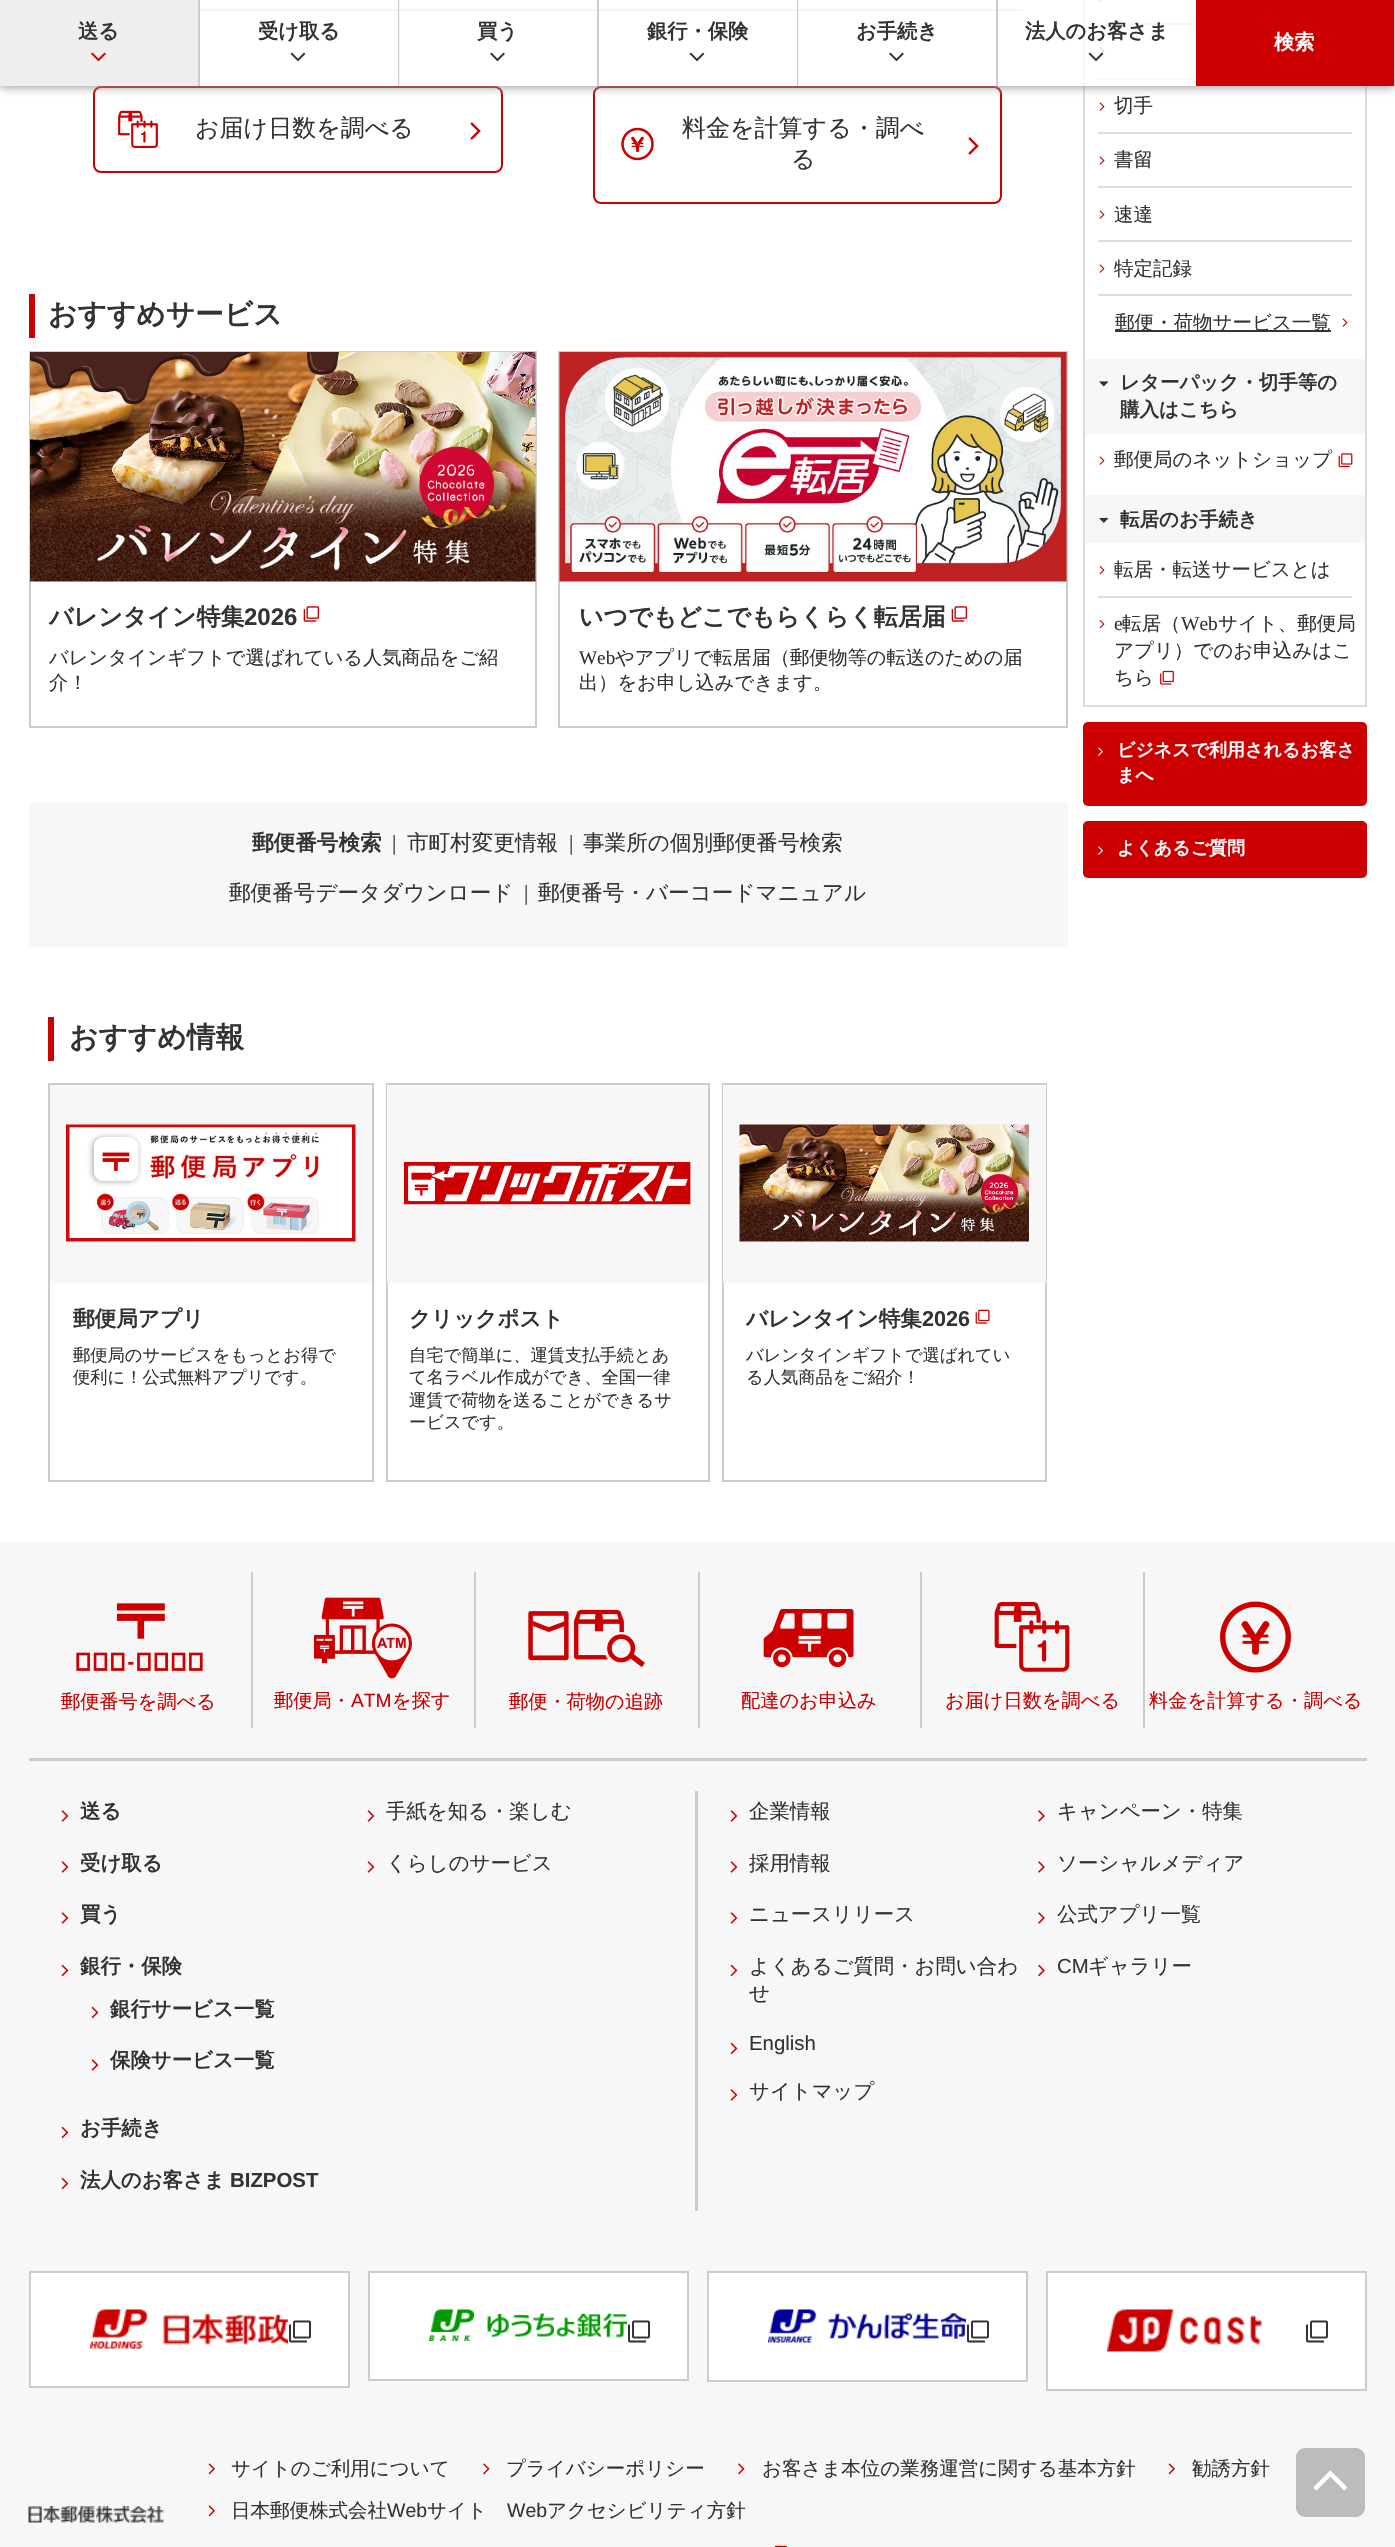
#include "include/core/SkBlurTypes.h"
#include "include/core/SkCanvas.h"
#include "include/core/SkData.h"
#include "include/core/SkFont.h"
#include "include/core/SkFontMgr.h"
#include "include/core/SkImage.h"
#include "include/core/SkMaskFilter.h"
#include "include/core/SkPaint.h"
#include "include/core/SkPathBuilder.h"
#include "include/core/SkTextBlob.h"
#include "include/effects/SkDashPathEffect.h"
#include "include/effects/SkGradientShader.h"
#include "include/utils/SkParsePath.h"

extern sk_sp<SkFontMgr> fontMgr;

void draw(SkCanvas* canvas) {
  SkPaint p;
  p.setAntiAlias(true);
  canvas->clear(SK_ColorWHITE);
  p.setColor(SkColorSetRGB(204, 204, 204));
  canvas->drawRect(SkRect::MakeLTRB(200, 9, 1023, 11), p);
  p.setStyle(SkPaint::kStroke_Style);
  p.setStrokeWidth(2);
  p.setColor(SkColorSetRGB(204, 0, 0));
  canvas->drawRoundRect(SkRect::MakeLTRB(94, 87, 502, 172), 7, 7, p);
  canvas->drawRoundRect(SkRect::MakeLTRB(594, 87, 1001, 203), 7, 7, p);
  p.setStyle(SkPaint::kFill_Style);
  p.setColor(SkColorSetRGB(220, 220, 220));
  canvas->drawRect(SkRect::MakeLTRB(1365, 86, 1367, 359), p);
  canvas->drawRect(SkRect::MakeLTRB(1083, 0, 1085, 359), p);
  canvas->drawImageRect(SkImages::DeferredFromEncodedData(SkData::MakeFromFileName("images/15.png")), SkRect::MakeLTRB(1099, 0, 1102, 2), SkSamplingOptions());
  canvas->drawRect(SkRect::MakeLTRB(1098, 23, 1196, 25), p);
  canvas->drawImageRect(SkImages::DeferredFromEncodedData(SkData::MakeFromFileName("images/16.png")), SkRect::MakeLTRB(1099, 47, 1105, 55), SkSamplingOptions());
  canvas->drawRect(SkRect::MakeLTRB(1098, 78, 1196, 80), p);
  canvas->save();
  canvas->clipPath(SkPathBuilder(SkPathFillType::kEvenOdd).moveTo(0, 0).lineTo(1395, 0).lineTo(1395, 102).lineTo(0, 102).close().moveTo(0, 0).lineTo(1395, 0).lineTo(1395, 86).lineTo(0, 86).close().detach(), true);
  p.setColor(SkColorSetRGB(148, 148, 148));
  p.setMaskFilter(SkMaskFilter::MakeBlur(kNormal_SkBlurStyle, 4.5f));
  canvas->drawRect(SkRect::MakeLTRB(0, 2, 1395, 87), p);
  p.setMaskFilter(nullptr);
  canvas->restore();
  p.setColor(SkColorSetRGB(238, 238, 238));
  canvas->drawRect(SkRect::MakeLTRB(0, 0, 198, 86), p);
  p.setColor(SkColorSetRGB(204, 204, 204));
  canvas->drawRect(SkRect::MakeLTRB(198, 0, 200, 86), p);
  canvas->drawImageRect(SkImages::DeferredFromEncodedData(SkData::MakeFromFileName("images/1.png")), SkRect::MakeLTRB(91, 52, 106, 62), SkSamplingOptions());
  p.setColor(SkColorSetARGB(204, 255, 255, 255));
  canvas->drawRect(SkRect::MakeLTRB(200, 9, 398, 86), p);
  p.setColor(SkColorSetRGB(204, 204, 204));
  canvas->drawRect(SkRect::MakeLTRB(398, 0, 400, 86), p);
  canvas->drawImageRect(SkImages::DeferredFromEncodedData(SkData::MakeFromFileName("images/2.png")), SkRect::MakeLTRB(290, 52, 306, 62), SkSamplingOptions());
  p.setColor(SkColorSetARGB(204, 255, 255, 255));
  canvas->drawRect(SkRect::MakeLTRB(399, 0, 597, 86), p);
  p.setColor(SkColorSetRGB(204, 204, 204));
  canvas->drawRect(SkRect::MakeLTRB(597, 0, 599, 86), p);
  canvas->drawImageRect(SkImages::DeferredFromEncodedData(SkData::MakeFromFileName("images/3.png")), SkRect::MakeLTRB(490, 52, 505, 62), SkSamplingOptions());
  p.setColor(SkColorSetARGB(204, 255, 255, 255));
  canvas->drawRect(SkRect::MakeLTRB(599, 9, 797, 86), p);
  p.setColor(SkColorSetRGB(204, 204, 204));
  canvas->drawRect(SkRect::MakeLTRB(797, 0, 799, 86), p);
  canvas->drawImageRect(SkImages::DeferredFromEncodedData(SkData::MakeFromFileName("images/2.png")), SkRect::MakeLTRB(689, 52, 705, 62), SkSamplingOptions());
  p.setColor(SkColorSetARGB(204, 255, 255, 255));
  canvas->drawRect(SkRect::MakeLTRB(798, 0, 996, 86), p);
  p.setColor(SkColorSetRGB(204, 204, 204));
  canvas->drawRect(SkRect::MakeLTRB(996, 0, 998, 86), p);
  canvas->drawImageRect(SkImages::DeferredFromEncodedData(SkData::MakeFromFileName("images/3.png")), SkRect::MakeLTRB(889, 52, 904, 62), SkSamplingOptions());
  p.setColor(SkColorSetARGB(204, 255, 255, 255));
  canvas->drawRect(SkRect::MakeLTRB(998, 0, 1196, 86), p);
  canvas->drawImageRect(SkImages::DeferredFromEncodedData(SkData::MakeFromFileName("images/4.png")), SkRect::MakeLTRB(1088, 52, 1104, 62), SkSamplingOptions());
  p.setColor(SkColorSetRGB(204, 0, 0));
  canvas->drawRect(SkRect::MakeLTRB(1196, 0, 1394, 86), p);
  p.setColor(SkColorSetRGB(204, 204, 204));
  canvas->drawRect(SkRect::MakeLTRB(1394, 0, 1395, 86), p);
  canvas->drawImageRect(SkImages::DeferredFromEncodedData(SkData::MakeFromFileName("images/5.png")), SkRect::MakeLTRB(118, 110, 158, 148), SkSamplingOptions());
  canvas->drawImageRect(SkImages::DeferredFromEncodedData(SkData::MakeFromFileName("images/6.png")), SkRect::MakeLTRB(470, 122, 481, 140), SkSamplingOptions());
  canvas->drawImageRect(SkImages::DeferredFromEncodedData(SkData::MakeFromFileName("images/7.png")), SkRect::MakeLTRB(621, 127, 654, 161), SkSamplingOptions());
  canvas->drawImageRect(SkImages::DeferredFromEncodedData(SkData::MakeFromFileName("images/6.png")), SkRect::MakeLTRB(968, 137, 979, 155), SkSamplingOptions());
  p.setColor(SkColorSetRGB(204, 0, 0));
  canvas->drawRect(SkRect::MakeLTRB(29, 294, 35, 338), p);
  p.setStyle(SkPaint::kStroke_Style);
  p.setColor(SkColorSetRGB(204, 204, 204));
  canvas->drawRect(SkRect::MakeLTRB(30, 352, 536, 727), p);
  canvas->drawImageRect(SkImages::DeferredFromEncodedData(SkData::MakeFromFileName("images/8.png")), SkRect::MakeLTRB(30, 352, 536, 582), SkSamplingOptions());
  canvas->drawImageRect(SkImages::DeferredFromEncodedData(SkData::MakeFromFileName("images/9.png")), SkRect::MakeLTRB(303, 606, 320, 622), SkSamplingOptions());
  canvas->drawRect(SkRect::MakeLTRB(559, 352, 1067, 727), p);
  canvas->drawImageRect(SkImages::DeferredFromEncodedData(SkData::MakeFromFileName("images/10.png")), SkRect::MakeLTRB(559, 352, 1067, 582), SkSamplingOptions());
  canvas->drawImageRect(SkImages::DeferredFromEncodedData(SkData::MakeFromFileName("images/9.png")), SkRect::MakeLTRB(951, 606, 968, 622), SkSamplingOptions());
  p.setStyle(SkPaint::kFill_Style);
  p.setColor(SkColorSetRGB(247, 247, 247));
  canvas->drawRect(SkRect::MakeLTRB(29, 803, 1068, 947), p);
  p.setColor(SkColorSetRGB(204, 0, 0));
  canvas->drawRect(SkRect::MakeLTRB(48, 1017, 54, 1061), p);
  p.setStyle(SkPaint::kStroke_Style);
  p.setColor(SkColorSetRGB(204, 204, 204));
  canvas->drawRect(SkRect::MakeLTRB(49, 1084, 373, 1481), p);
  p.setStyle(SkPaint::kFill_Style);
  p.setColor(SkColorSetRGB(247, 247, 247));
  canvas->drawRect(SkRect::MakeLTRB(50, 1085, 372, 1283), p);
  canvas->drawImageRect(SkImages::DeferredFromEncodedData(SkData::MakeFromFileName("images/11.png")), SkRect::MakeLTRB(66, 1124, 356, 1242), SkSamplingOptions());
  p.setStyle(SkPaint::kStroke_Style);
  p.setColor(SkColorSetRGB(204, 204, 204));
  canvas->drawRect(SkRect::MakeLTRB(387, 1084, 709, 1481), p);
  p.setStyle(SkPaint::kFill_Style);
  p.setColor(SkColorSetRGB(247, 247, 247));
  canvas->drawRect(SkRect::MakeLTRB(387, 1085, 708, 1283), p);
  canvas->drawImageRect(SkImages::DeferredFromEncodedData(SkData::MakeFromFileName("images/12.png")), SkRect::MakeLTRB(404, 1162, 691, 1205), SkSamplingOptions());
  p.setStyle(SkPaint::kStroke_Style);
  p.setColor(SkColorSetRGB(204, 204, 204));
  canvas->drawRect(SkRect::MakeLTRB(723, 1084, 1046, 1481), p);
  p.setStyle(SkPaint::kFill_Style);
  p.setColor(SkColorSetRGB(247, 247, 247));
  canvas->drawRect(SkRect::MakeLTRB(723, 1085, 1046, 1283), p);
  canvas->drawImageRect(SkImages::DeferredFromEncodedData(SkData::MakeFromFileName("images/13.png")), SkRect::MakeLTRB(739, 1124, 1029, 1242), SkSamplingOptions());
  canvas->drawImageRect(SkImages::DeferredFromEncodedData(SkData::MakeFromFileName("images/14.png")), SkRect::MakeLTRB(975, 1309, 990, 1324), SkSamplingOptions());
  canvas->drawImageRect(SkImages::DeferredFromEncodedData(SkData::MakeFromFileName("images/17.png")), SkRect::MakeLTRB(1099, 102, 1105, 111), SkSamplingOptions());
  p.setColor(SkColorSetRGB(220, 220, 220));
  canvas->drawRect(SkRect::MakeLTRB(1098, 132, 1352, 134), p);
  canvas->drawImageRect(SkImages::DeferredFromEncodedData(SkData::MakeFromFileName("images/17.png")), SkRect::MakeLTRB(1099, 156, 1105, 165), SkSamplingOptions());
  canvas->drawRect(SkRect::MakeLTRB(1098, 186, 1352, 188), p);
  canvas->drawImageRect(SkImages::DeferredFromEncodedData(SkData::MakeFromFileName("images/17.png")), SkRect::MakeLTRB(1099, 210, 1105, 219), SkSamplingOptions());
  canvas->drawRect(SkRect::MakeLTRB(1098, 240, 1352, 242), p);
  canvas->drawImageRect(SkImages::DeferredFromEncodedData(SkData::MakeFromFileName("images/17.png")), SkRect::MakeLTRB(1099, 264, 1105, 273), SkSamplingOptions());
  canvas->drawRect(SkRect::MakeLTRB(1098, 294, 1352, 296), p);
  p.setColor(SkColorSetRGB(51, 51, 51));
  canvas->drawRect(SkRect::MakeLTRB(1115, 330, 1331, 332), p);
  canvas->drawImageRect(SkImages::DeferredFromEncodedData(SkData::MakeFromFileName("images/17.png")), SkRect::MakeLTRB(1342, 318, 1348, 327), SkSamplingOptions());
  p.setColor(SkColorSetRGB(247, 247, 247));
  canvas->drawRect(SkRect::MakeLTRB(1085, 359, 1365, 434), p);
  canvas->drawImageRect(SkImages::DeferredFromEncodedData(SkData::MakeFromFileName("images/18.png")), SkRect::MakeLTRB(1099, 381, 1108, 387), SkSamplingOptions());
  p.setColor(SkColorSetRGB(220, 220, 220));
  canvas->drawRect(SkRect::MakeLTRB(1365, 359, 1367, 495), p);
  canvas->drawRect(SkRect::MakeLTRB(1083, 359, 1085, 495), p);
  canvas->drawImageRect(SkImages::DeferredFromEncodedData(SkData::MakeFromFileName("images/17.png")), SkRect::MakeLTRB(1099, 456, 1105, 465), SkSamplingOptions());
  canvas->drawImageRect(SkImages::DeferredFromEncodedData(SkData::MakeFromFileName("images/19.png")), SkRect::MakeLTRB(1338, 453, 1353, 468), SkSamplingOptions());
  p.setColor(SkColorSetRGB(247, 247, 247));
  canvas->drawRect(SkRect::MakeLTRB(1085, 495, 1365, 543), p);
  canvas->drawImageRect(SkImages::DeferredFromEncodedData(SkData::MakeFromFileName("images/20.png")), SkRect::MakeLTRB(1099, 517, 1108, 523), SkSamplingOptions());
  p.setColor(SkColorSetRGB(220, 220, 220));
  canvas->drawRect(SkRect::MakeLTRB(1365, 495, 1367, 707), p);
  canvas->drawRect(SkRect::MakeLTRB(1083, 705, 1367, 707), p);
  canvas->drawRect(SkRect::MakeLTRB(1083, 495, 1085, 707), p);
  canvas->drawImageRect(SkImages::DeferredFromEncodedData(SkData::MakeFromFileName("images/21.png")), SkRect::MakeLTRB(1099, 566, 1105, 575), SkSamplingOptions());
  canvas->drawRect(SkRect::MakeLTRB(1098, 596, 1352, 598), p);
  canvas->drawImageRect(SkImages::DeferredFromEncodedData(SkData::MakeFromFileName("images/21.png")), SkRect::MakeLTRB(1099, 620, 1105, 629), SkSamplingOptions());
  canvas->drawImageRect(SkImages::DeferredFromEncodedData(SkData::MakeFromFileName("images/22.png")), SkRect::MakeLTRB(1160, 670, 1174, 685), SkSamplingOptions());
  p.setColor(SkColorSetRGB(204, 0, 0));
  canvas->drawRoundRect(SkRect::MakeLTRB(1083, 722, 1367, 806), 5, 5, p);
  canvas->drawImageRect(SkImages::DeferredFromEncodedData(SkData::MakeFromFileName("images/23.png")), SkRect::MakeLTRB(1098, 747, 1103, 756), SkSamplingOptions());
  canvas->drawRoundRect(SkRect::MakeLTRB(1083, 821, 1367, 878), 5, 5, p);
  canvas->drawImageRect(SkImages::DeferredFromEncodedData(SkData::MakeFromFileName("images/23.png")), SkRect::MakeLTRB(1098, 846, 1103, 855), SkSamplingOptions());
  p.setColor(SkColorSetRGB(247, 247, 247));
  canvas->drawRect(SkRect::MakeLTRB(0, 1542, 1395, 2547), p);
  p.setColor(SkColorSetRGB(204, 204, 204));
  canvas->drawRect(SkRect::MakeLTRB(29, 1758, 1367, 1761), p);
  canvas->drawRect(SkRect::MakeLTRB(251, 1572, 253, 1728), p);
  canvas->drawImageRect(SkImages::DeferredFromEncodedData(SkData::MakeFromFileName("images/24.png")), SkRect::MakeLTRB(76, 1603, 203, 1671), SkSamplingOptions());
  canvas->drawRect(SkRect::MakeLTRB(474, 1572, 476, 1728), p);
  canvas->drawImageRect(SkImages::DeferredFromEncodedData(SkData::MakeFromFileName("images/25.png")), SkRect::MakeLTRB(314, 1597, 412, 1679), SkSamplingOptions());
  canvas->drawRect(SkRect::MakeLTRB(698, 1572, 700, 1728), p);
  canvas->drawImageRect(SkImages::DeferredFromEncodedData(SkData::MakeFromFileName("images/26.png")), SkRect::MakeLTRB(528, 1609, 645, 1667), SkSamplingOptions());
  canvas->drawRect(SkRect::MakeLTRB(920, 1572, 922, 1728), p);
  canvas->drawImageRect(SkImages::DeferredFromEncodedData(SkData::MakeFromFileName("images/27.png")), SkRect::MakeLTRB(763, 1609, 854, 1668), SkSamplingOptions());
  canvas->drawRect(SkRect::MakeLTRB(1143, 1572, 1145, 1728), p);
  canvas->drawImageRect(SkImages::DeferredFromEncodedData(SkData::MakeFromFileName("images/28.png")), SkRect::MakeLTRB(994, 1602, 1070, 1672), SkSamplingOptions());
  canvas->drawImageRect(SkImages::DeferredFromEncodedData(SkData::MakeFromFileName("images/29.png")), SkRect::MakeLTRB(1220, 1601, 1291, 1673), SkSamplingOptions());
  canvas->drawRect(SkRect::MakeLTRB(695, 1791, 698, 2211), p);
  canvas->drawImageRect(SkImages::DeferredFromEncodedData(SkData::MakeFromFileName("images/30.png")), SkRect::MakeLTRB(61, 1810, 69, 1822), SkSamplingOptions());
  canvas->drawImageRect(SkImages::DeferredFromEncodedData(SkData::MakeFromFileName("images/30.png")), SkRect::MakeLTRB(61, 1861, 69, 1873), SkSamplingOptions());
  canvas->drawImageRect(SkImages::DeferredFromEncodedData(SkData::MakeFromFileName("images/30.png")), SkRect::MakeLTRB(61, 1912, 69, 1924), SkSamplingOptions());
  canvas->drawImageRect(SkImages::DeferredFromEncodedData(SkData::MakeFromFileName("images/31.png")), SkRect::MakeLTRB(61, 1964, 69, 1977), SkSamplingOptions());
  canvas->drawImageRect(SkImages::DeferredFromEncodedData(SkData::MakeFromFileName("images/31.png")), SkRect::MakeLTRB(91, 2006, 99, 2019), SkSamplingOptions());
  canvas->drawImageRect(SkImages::DeferredFromEncodedData(SkData::MakeFromFileName("images/30.png")), SkRect::MakeLTRB(91, 2059, 99, 2071), SkSamplingOptions());
  canvas->drawImageRect(SkImages::DeferredFromEncodedData(SkData::MakeFromFileName("images/31.png")), SkRect::MakeLTRB(61, 2126, 69, 2139), SkSamplingOptions());
  canvas->drawImageRect(SkImages::DeferredFromEncodedData(SkData::MakeFromFileName("images/31.png")), SkRect::MakeLTRB(61, 2177, 69, 2190), SkSamplingOptions());
  canvas->drawImageRect(SkImages::DeferredFromEncodedData(SkData::MakeFromFileName("images/30.png")), SkRect::MakeLTRB(367, 1810, 375, 1822), SkSamplingOptions());
  canvas->drawImageRect(SkImages::DeferredFromEncodedData(SkData::MakeFromFileName("images/30.png")), SkRect::MakeLTRB(367, 1861, 375, 1873), SkSamplingOptions());
  canvas->drawImageRect(SkImages::DeferredFromEncodedData(SkData::MakeFromFileName("images/30.png")), SkRect::MakeLTRB(730, 1810, 738, 1822), SkSamplingOptions());
  canvas->drawImageRect(SkImages::DeferredFromEncodedData(SkData::MakeFromFileName("images/30.png")), SkRect::MakeLTRB(730, 1861, 738, 1873), SkSamplingOptions());
  canvas->drawImageRect(SkImages::DeferredFromEncodedData(SkData::MakeFromFileName("images/30.png")), SkRect::MakeLTRB(730, 1912, 738, 1924), SkSamplingOptions());
  canvas->drawImageRect(SkImages::DeferredFromEncodedData(SkData::MakeFromFileName("images/31.png")), SkRect::MakeLTRB(730, 1964, 738, 1977), SkSamplingOptions());
  canvas->drawImageRect(SkImages::DeferredFromEncodedData(SkData::MakeFromFileName("images/31.png")), SkRect::MakeLTRB(730, 2042, 738, 2055), SkSamplingOptions());
  canvas->drawImageRect(SkImages::DeferredFromEncodedData(SkData::MakeFromFileName("images/30.png")), SkRect::MakeLTRB(730, 2089, 738, 2101), SkSamplingOptions());
  canvas->drawImageRect(SkImages::DeferredFromEncodedData(SkData::MakeFromFileName("images/32.png")), SkRect::MakeLTRB(1038, 1810, 1045, 1822), SkSamplingOptions());
  canvas->drawImageRect(SkImages::DeferredFromEncodedData(SkData::MakeFromFileName("images/32.png")), SkRect::MakeLTRB(1038, 1861, 1045, 1873), SkSamplingOptions());
  canvas->drawImageRect(SkImages::DeferredFromEncodedData(SkData::MakeFromFileName("images/32.png")), SkRect::MakeLTRB(1038, 1912, 1045, 1924), SkSamplingOptions());
  canvas->drawImageRect(SkImages::DeferredFromEncodedData(SkData::MakeFromFileName("images/33.png")), SkRect::MakeLTRB(1038, 1964, 1045, 1977), SkSamplingOptions());
  p.setColor(SK_ColorWHITE);
  canvas->drawRect(SkRect::MakeLTRB(30, 2272, 349, 2387), p);
  p.setStyle(SkPaint::kStroke_Style);
  p.setColor(SkColorSetRGB(204, 204, 204));
  canvas->drawRect(SkRect::MakeLTRB(30, 2272, 349, 2387), p);
  canvas->drawImageRect(SkImages::DeferredFromEncodedData(SkData::MakeFromFileName("images/34.png")), SkRect::MakeLTRB(90, 2309, 288, 2349), SkSamplingOptions());
  canvas->drawImageRect(SkImages::DeferredFromEncodedData(SkData::MakeFromFileName("images/35.png")), SkRect::MakeLTRB(289, 2320, 311, 2343), SkSamplingOptions());
  p.setStyle(SkPaint::kFill_Style);
  p.setColor(SK_ColorWHITE);
  canvas->drawRect(SkRect::MakeLTRB(369, 2272, 688, 2380), p);
  p.setStyle(SkPaint::kStroke_Style);
  p.setColor(SkColorSetRGB(204, 204, 204));
  canvas->drawRect(SkRect::MakeLTRB(369, 2272, 688, 2380), p);
  canvas->drawImageRect(SkImages::DeferredFromEncodedData(SkData::MakeFromFileName("images/36.png")), SkRect::MakeLTRB(429, 2309, 627, 2341), SkSamplingOptions());
  canvas->drawImageRect(SkImages::DeferredFromEncodedData(SkData::MakeFromFileName("images/35.png")), SkRect::MakeLTRB(628, 2320, 650, 2343), SkSamplingOptions());
  p.setStyle(SkPaint::kFill_Style);
  p.setColor(SK_ColorWHITE);
  canvas->drawRect(SkRect::MakeLTRB(708, 2272, 1027, 2381), p);
  p.setStyle(SkPaint::kStroke_Style);
  p.setColor(SkColorSetRGB(204, 204, 204));
  canvas->drawRect(SkRect::MakeLTRB(708, 2272, 1027, 2381), p);
  canvas->drawImageRect(SkImages::DeferredFromEncodedData(SkData::MakeFromFileName("images/37.png")), SkRect::MakeLTRB(768, 2309, 966, 2343), SkSamplingOptions());
  canvas->drawImageRect(SkImages::DeferredFromEncodedData(SkData::MakeFromFileName("images/35.png")), SkRect::MakeLTRB(967, 2320, 989, 2343), SkSamplingOptions());
  p.setStyle(SkPaint::kFill_Style);
  p.setColor(SK_ColorWHITE);
  canvas->drawRect(SkRect::MakeLTRB(1047, 2272, 1366, 2390), p);
  p.setStyle(SkPaint::kStroke_Style);
  p.setColor(SkColorSetRGB(204, 204, 204));
  canvas->drawRect(SkRect::MakeLTRB(1047, 2272, 1366, 2390), p);
  canvas->drawImageRect(SkImages::DeferredFromEncodedData(SkData::MakeFromFileName("images/38.png")), SkRect::MakeLTRB(1107, 2309, 1262, 2352), SkSamplingOptions());
  canvas->drawImageRect(SkImages::DeferredFromEncodedData(SkData::MakeFromFileName("images/35.png")), SkRect::MakeLTRB(1306, 2320, 1328, 2343), SkSamplingOptions());
  canvas->drawImageRect(SkImages::DeferredFromEncodedData(SkData::MakeFromFileName("images/39.png")), SkRect::MakeLTRB(28, 2506, 164, 2523), SkSamplingOptions());
  canvas->drawImageRect(SkImages::DeferredFromEncodedData(SkData::MakeFromFileName("images/40.png")), SkRect::MakeLTRB(208, 2463, 215, 2475), SkSamplingOptions());
  canvas->drawImageRect(SkImages::DeferredFromEncodedData(SkData::MakeFromFileName("images/41.png")), SkRect::MakeLTRB(483, 2463, 490, 2475), SkSamplingOptions());
  canvas->drawImageRect(SkImages::DeferredFromEncodedData(SkData::MakeFromFileName("images/41.png")), SkRect::MakeLTRB(738, 2463, 745, 2475), SkSamplingOptions());
  canvas->drawImageRect(SkImages::DeferredFromEncodedData(SkData::MakeFromFileName("images/40.png")), SkRect::MakeLTRB(1168, 2463, 1175, 2475), SkSamplingOptions());
  canvas->drawImageRect(SkImages::DeferredFromEncodedData(SkData::MakeFromFileName("images/40.png")), SkRect::MakeLTRB(208, 2505, 215, 2517), SkSamplingOptions());
  canvas->drawImageRect(SkImages::DeferredFromEncodedData(SkData::MakeFromFileName("images/42.png")), SkRect::MakeLTRB(774, 2545, 787, 2547), SkSamplingOptions());
  p.setStyle(SkPaint::kFill_Style);
  p.setColor(SkColorSetRGB(188, 188, 188));
  canvas->drawRoundRect(SkRect::MakeLTRB(1296, 2448, 1365, 2517), 9, 9, p);
  canvas->drawImageRect(SkImages::DeferredFromEncodedData(SkData::MakeFromFileName("images/43.png")), SkRect::MakeLTRB(1313, 2470, 1347, 2491), SkSamplingOptions());
  SkFont font1(fontMgr->matchFamilyStyle("WenQuanYi Zen Hei", SkFontStyle::Bold()), 20.25f);
  font1.setSubpixel(true);
  p.setColor(SkColorSetRGB(51, 51, 51));
  canvas->drawString("送る", 78, 38, font1, p);
  canvas->drawString("受け取る", 258, 38, font1, p);
  canvas->drawString("買う", 477, 38, font1, p);
  canvas->drawString("銀行・保険", 647, 38, font1, p);
  canvas->drawString("お手続き", 856, 38, font1, p);
  canvas->drawString("法人のお客さま", 1025, 38, font1, p);
  p.setColor(SK_ColorWHITE);
  canvas->drawString("検索", 1274, 49, font1, p);
  SkFont font2(fontMgr->matchFamilyStyle("WenQuanYi Zen Hei", SkFontStyle(500, SkFontStyle::kNormal_Width, SkFontStyle::kUpright_Slant)), 24);
  font2.setSubpixel(true);
  p.setColor(SkColorSetRGB(51, 51, 51));
  canvas->drawString("お届け日数を調べる", 195, 136, font2, p);
  canvas->drawString("料金を計算する・調べ", 682, 136, font2, p);
  canvas->drawString("る", 791, 167, font2, p);
  SkFont font3(fontMgr->matchFamilyStyle("WenQuanYi Zen Hei", SkFontStyle::Bold()), 28.75f);
  font3.setSubpixel(true);
  canvas->drawString("おすすめサービス", 48, 324, font3, p);
  SkFont font4(fontMgr->matchFamilyStyle("WenQuanYi Zen Hei", SkFontStyle::Bold()), 24);
  font4.setSubpixel(true);
  canvas->drawString("バレンタイン特集", 49, 625, font4, p);
  SkFont font5(fontMgr->matchFamilyStyle("Liberation Sans", SkFontStyle::Bold()), 24);
  font5.setSubpixel(true);
  canvas->drawString("2026", 244, 625, font5, p);
  SkFont font6(fontMgr->matchFamilyStyle("WenQuanYi Zen Hei", SkFontStyle(500, SkFontStyle::kNormal_Width, SkFontStyle::kUpright_Slant)), 19.2f);
  font6.setSubpixel(true);
  canvas->drawString("バレンタインギフトで選ばれている人気商品をご紹", 49, 664, font6, p);
  canvas->drawString("介！", 49, 689, font6, p);
  canvas->drawString("いつでもどこでもらくらく転居届", 579, 625, font4, p);
  SkFont font7(fontMgr->matchFamilyStyle("Liberation Serif", SkFontStyle::Normal()), 19.2f);
  font7.setSubpixel(true);
  canvas->drawString("Web", 579, 664, font7, p);
  canvas->drawString("やアプリで転居届（郵便物等の転送のための届", 615, 664, font6, p);
  canvas->drawString("出）をお申し込みできます。", 579, 689, font6, p);
  SkFont font8(fontMgr->matchFamilyStyle("WenQuanYi Zen Hei", SkFontStyle::Bold()), 21.6f);
  font8.setSubpixel(true);
  canvas->drawString("郵便番号検索", 252, 850, font8, p);
  SkFont font9(fontMgr->matchFamilyStyle("Liberation Serif", SkFontStyle::Normal()), 21.6f);
  font9.setSubpixel(true);
  canvas->drawString("|", 392, 850, font9, p);
  SkFont font10(fontMgr->matchFamilyStyle("WenQuanYi Zen Hei", SkFontStyle(500, SkFontStyle::kNormal_Width, SkFontStyle::kUpright_Slant)), 21.6f);
  font10.setSubpixel(true);
  canvas->drawString("市町村変更情報", 407, 850, font10, p);
  canvas->drawString("|", 569, 850, font9, p);
  canvas->drawString("事業所の個別郵便番号検索", 583, 850, font10, p);
  canvas->drawString("郵便番号データダウンロード", 229, 900, font10, p);
  canvas->drawString("|", 524, 900, font9, p);
  canvas->drawString("郵便番号・バーコードマニュアル", 538, 900, font10, p);
  canvas->drawString("おすすめ情報", 69, 1047, font3, p);
  canvas->drawString("郵便局アプリ", 73, 1326, font8, p);
  SkFont font11(fontMgr->matchFamilyStyle("WenQuanYi Zen Hei", SkFontStyle(500, SkFontStyle::kNormal_Width, SkFontStyle::kUpright_Slant)), 17.25f);
  font11.setSubpixel(true);
  canvas->drawString("郵便局のサービスをもっとお得で", 73, 1361, font11, p);
  canvas->drawString("便利に！公式無料アプリです。", 73, 1383, font11, p);
  canvas->drawString("クリックポスト", 409, 1326, font8, p);
  canvas->drawString("自宅で簡単に、運賃支払手続とあ", 409, 1361, font11, p);
  canvas->drawString("て名ラベル作成ができ、全国一律", 409, 1383, font11, p);
  canvas->drawString("運賃で荷物を送ることができるサ", 409, 1406, font11, p);
  canvas->drawString("ービスです。", 409, 1428, font11, p);
  canvas->drawString("バレンタイン特集", 746, 1326, font8, p);
  SkFont font12(fontMgr->matchFamilyStyle("Liberation Sans", SkFontStyle::Bold()), 21.6f);
  font12.setSubpixel(true);
  canvas->drawString("2026", 922, 1326, font12, p);
  canvas->drawString("バレンタインギフトで選ばれてい", 746, 1361, font11, p);
  canvas->drawString("る人気商品をご紹介！", 746, 1383, font11, p);
  SkFont font13(fontMgr->matchFamilyStyle("WenQuanYi Zen Hei", SkFontStyle(500, SkFontStyle::kNormal_Width, SkFontStyle::kUpright_Slant)), 19.5f);
  font13.setSubpixel(true);
  canvas->drawString("切手", 1114, 112, font13, p);
  canvas->drawString("書留", 1114, 166, font13, p);
  canvas->drawString("速達", 1114, 221, font13, p);
  canvas->drawString("特定記録", 1114, 275, font13, p);
  canvas->drawString("郵便・荷物サービス一覧", 1115, 329, font13, p);
  SkFont font14(fontMgr->matchFamilyStyle("WenQuanYi Zen Hei", SkFontStyle::Bold()), 19.5f);
  font14.setSubpixel(true);
  canvas->drawString("レターパック・切手等の", 1120, 389, font14, p);
  canvas->drawString("購入はこちら", 1120, 416, font14, p);
  canvas->drawString("郵便局のネットショップ", 1114, 466, font13, p);
  canvas->drawString("転居のお手続き", 1120, 526, font14, p);
  canvas->drawString("転居・転送サービスとは", 1114, 576, font13, p);
  SkFont font15(fontMgr->matchFamilyStyle("Liberation Serif", SkFontStyle::Normal()), 19.5f);
  font15.setSubpixel(true);
  canvas->drawString("e", 1114, 630, font15, p);
  canvas->drawString("転居（", 1122, 630, font13, p);
  canvas->drawString("Web", 1181, 630, font15, p);
  canvas->drawString("サイト、郵便局", 1218, 630, font13, p);
  canvas->drawString("アプリ）でのお申込みはこ", 1114, 657, font13, p);
  canvas->drawString("ちら", 1114, 684, font13, p);
  SkFont font16(fontMgr->matchFamilyStyle("WenQuanYi Zen Hei", SkFontStyle::Bold()), 18);
  font16.setSubpixel(true);
  p.setColor(SK_ColorWHITE);
  canvas->drawString("ビジネスで利用されるお客さ", 1117, 756, font16, p);
  canvas->drawString("まへ", 1117, 781, font16, p);
  canvas->drawString("よくあるご質問", 1117, 854, font16, p);
  p.setColor(SkColorSetRGB(204, 0, 0));
  canvas->drawString("郵便番号を調べる", 61, 1708, font6, p);
  canvas->drawString("郵便局・", 274, 1707, font6, p);
  SkFont font17(fontMgr->matchFamilyStyle("Liberation Sans", SkFontStyle::Normal()), 19.2f);
  font17.setSubpixel(true);
  canvas->drawString("ATM", 351, 1707, font17, p);
  canvas->drawString("を探す", 392, 1707, font6, p);
  canvas->drawString("郵便・荷物の追跡", 509, 1708, font6, p);
  canvas->drawString("配達のお申込み", 741, 1707, font6, p);
  canvas->drawString("お届け日数を調べる", 945, 1707, font6, p);
  canvas->drawString("料金を計算する・調べる", 1149, 1707, font6, p);
  SkFont font18(fontMgr->matchFamilyStyle("WenQuanYi Zen Hei", SkFontStyle::Bold()), 20.4f);
  font18.setSubpixel(true);
  p.setColor(SkColorSetRGB(51, 51, 51));
  canvas->drawString("送る", 80, 1818, font18, p);
  canvas->drawString("受け取る", 80, 1870, font18, p);
  canvas->drawString("買う", 80, 1921, font18, p);
  canvas->drawString("銀行・保険", 80, 1973, font18, p);
  canvas->drawString("銀行サービス一覧", 110, 2016, font18, p);
  canvas->drawString("保険サービス一覧", 110, 2067, font18, p);
  canvas->drawString("お手続き", 80, 2135, font18, p);
  canvas->drawString("法人のお客さま", 80, 2187, font18, p);
  SkFont font19(fontMgr->matchFamilyStyle("Liberation Sans", SkFontStyle::Bold()), 20.4f);
  font19.setSubpixel(true);
  canvas->drawString("BIZPOST", 230, 2187, font19, p);
  SkFont font20(fontMgr->matchFamilyStyle("WenQuanYi Zen Hei", SkFontStyle(500, SkFontStyle::kNormal_Width, SkFontStyle::kUpright_Slant)), 20.4f);
  font20.setSubpixel(true);
  canvas->drawString("手紙を知る・楽しむ", 386, 1818, font20, p);
  canvas->drawString("くらしのサービス", 386, 1870, font20, p);
  canvas->drawString("企業情報", 749, 1818, font20, p);
  canvas->drawString("採用情報", 749, 1870, font20, p);
  canvas->drawString("ニュースリリース", 749, 1921, font20, p);
  canvas->drawString("よくあるご質問・お問い合わ", 749, 1973, font20, p);
  canvas->drawString("せ", 749, 2000, font20, p);
  SkFont font21(fontMgr->matchFamilyStyle("Liberation Sans", SkFontStyle::Normal()), 20.4f);
  font21.setSubpixel(true);
  canvas->drawString("English", 749, 2050, font21, p);
  canvas->drawString("サイトマップ", 749, 2098, font20, p);
  canvas->drawString("キャンペーン・特集", 1057, 1818, font20, p);
  canvas->drawString("ソーシャルメディア", 1057, 1870, font20, p);
  canvas->drawString("公式アプリ一覧", 1057, 1921, font20, p);
  canvas->drawString("CM", 1057, 1973, font21, p);
  canvas->drawString("ギャラリー", 1088, 1973, font20, p);
  canvas->drawString("サイトのご利用について", 231, 2475, font13, p);
  canvas->drawString("プライバシーポリシー", 506, 2475, font13, p);
  canvas->drawString("お客さま本位の業務運営に関する基本方針", 762, 2475, font13, p);
  canvas->drawString("勧誘方針", 1192, 2475, font13, p);
  canvas->drawString("日本郵便株式会社", 231, 2517, font13, p);
  SkFont font22(fontMgr->matchFamilyStyle("Liberation Sans", SkFontStyle::Normal()), 19.5f);
  font22.setSubpixel(true);
  canvas->drawString("Web", 387, 2517, font22, p);
  canvas->drawString("サイト", 427, 2517, font13, p);
  canvas->drawString("Web", 507, 2517, font22, p);
  canvas->drawString("アクセシビリティ方針", 547, 2517, font13, p);
}
